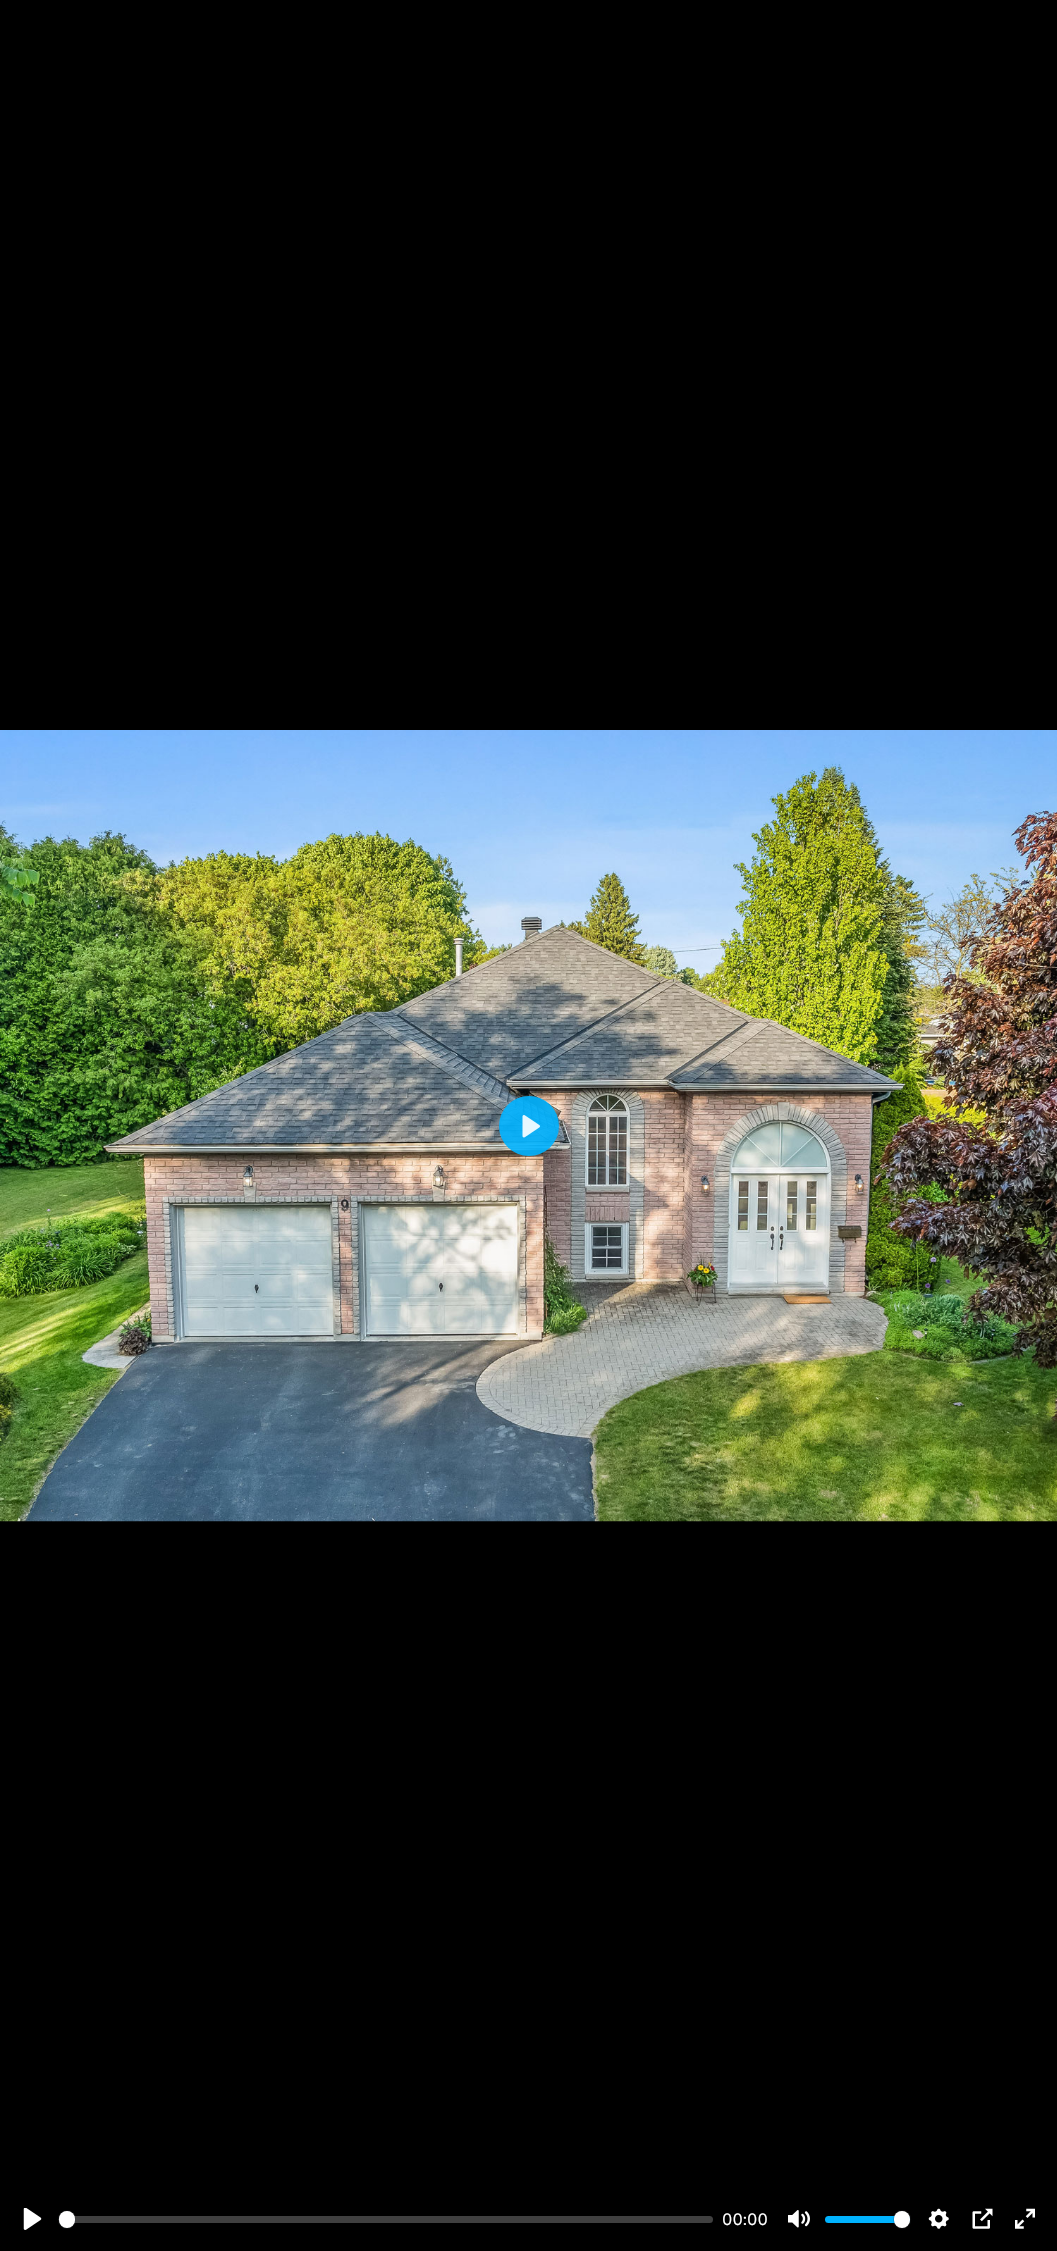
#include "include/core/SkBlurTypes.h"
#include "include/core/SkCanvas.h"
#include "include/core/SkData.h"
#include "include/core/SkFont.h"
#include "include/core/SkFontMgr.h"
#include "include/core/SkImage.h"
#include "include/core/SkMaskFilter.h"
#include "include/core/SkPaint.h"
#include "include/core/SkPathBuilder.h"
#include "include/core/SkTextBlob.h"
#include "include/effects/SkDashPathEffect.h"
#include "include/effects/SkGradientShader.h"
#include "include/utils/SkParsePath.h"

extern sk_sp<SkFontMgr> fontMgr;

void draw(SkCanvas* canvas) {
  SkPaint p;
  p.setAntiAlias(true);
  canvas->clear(SK_ColorBLACK);
  canvas->drawImageRect(SkImages::DeferredFromEncodedData(SkData::MakeFromFileName("images/1.png")), SkRect::MakeLTRB(0, 730, 1057, 2229), SkSamplingOptions());
  p.setColor(SkColorSetARGB(230, 0, 179, 255));
  canvas->drawCircle(529, 1126, 30, p);
  canvas->drawImageRect(SkImages::DeferredFromEncodedData(SkData::MakeFromFileName("images/2.png")), SkRect::MakeLTRB(522, 1115, 540, 1138), SkSamplingOptions());
  {
    const SkColor colors[] = {SkColorSetARGB(0, 0, 0, 0), SkColorSetARGB(191, 0, 0, 0)};
    const float stops[] = {0, 1};
    const SkPoint ends[] = {{529, 2155}, {529, 2251}};
    p.setShader(SkGradientShader::MakeLinear(ends, colors, stops, 2, SkTileMode::kClamp));
    p.setAlpha(255);
  }
  canvas->drawRect(SkRect::MakeLTRB(58, 2210, 911, 2229), p);
  canvas->drawImageRect(SkImages::DeferredFromEncodedData(SkData::MakeFromFileName("images/3.png")), SkRect::MakeLTRB(23, 2208, 42, 2230), SkSamplingOptions());
  p.setShader(nullptr);
  p.setColor(SkColorSetARGB(64, 255, 255, 255));
  canvas->drawRoundRect(SkRect::MakeLTRB(59, 2216, 713, 2223), 3.5f, 3.5f, p);
  p.setStyle(SkPaint::kStroke_Style);
  p.setStrokeWidth(1);
  p.setColor(SkColorSetARGB(51, 35, 40, 47));
  canvas->drawRoundRect(SkRect::MakeLTRB(58.5f, 2210.5f, 75.5f, 2228.5f), 8.5f, 8.5f, p);
  p.setStyle(SkPaint::kFill_Style);
  p.setColor(SkColorSetARGB(38, 35, 40, 47));
  p.setMaskFilter(SkMaskFilter::MakeBlur(kNormal_SkBlurStyle, 0.5f));
  canvas->drawRoundRect(SkRect::MakeLTRB(59, 2213, 75, 2229), 8, 8, p);
  p.setMaskFilter(nullptr);
  p.setColor(SK_ColorWHITE);
  canvas->drawRoundRect(SkRect::MakeLTRB(59, 2211, 75, 2228), 8, 8, p);
  canvas->drawImageRect(SkImages::DeferredFromEncodedData(SkData::MakeFromFileName("images/4.png")), SkRect::MakeLTRB(788, 2210, 810, 2228), SkSamplingOptions());
  p.setColor(SkColorSetRGB(0, 179, 255));
  canvas->drawRoundRect(SkRect::MakeLTRB(825, 2216, 910, 2223), 3.5f, 3.5f, p);
  p.setStyle(SkPaint::kStroke_Style);
  p.setColor(SkColorSetARGB(51, 35, 40, 47));
  canvas->drawRoundRect(SkRect::MakeLTRB(893.5f, 2210.5f, 910.5f, 2228.5f), 8.5f, 8.5f, p);
  p.setStyle(SkPaint::kFill_Style);
  p.setColor(SkColorSetARGB(38, 35, 40, 47));
  p.setMaskFilter(SkMaskFilter::MakeBlur(kNormal_SkBlurStyle, 0.5f));
  canvas->drawRoundRect(SkRect::MakeLTRB(894, 2213, 910, 2229), 8, 8, p);
  p.setMaskFilter(nullptr);
  p.setColor(SK_ColorWHITE);
  canvas->drawRoundRect(SkRect::MakeLTRB(894, 2211, 910, 2228), 8, 8, p);
  canvas->drawImageRect(SkImages::DeferredFromEncodedData(SkData::MakeFromFileName("images/5.png")), SkRect::MakeLTRB(928, 2208, 949, 2229), SkSamplingOptions());
  canvas->drawImageRect(SkImages::DeferredFromEncodedData(SkData::MakeFromFileName("images/6.png")), SkRect::MakeLTRB(972, 2208, 993, 2229), SkSamplingOptions());
  canvas->drawImageRect(SkImages::DeferredFromEncodedData(SkData::MakeFromFileName("images/7.png")), SkRect::MakeLTRB(1015, 2208, 1035, 2229), SkSamplingOptions());
  SkFont font1(fontMgr->matchFamilyStyle("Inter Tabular", SkFontStyle::Normal()), 16);
  font1.setSubpixel(true);
  canvas->drawString("00:00", 722, 2225, font1, p);
}
